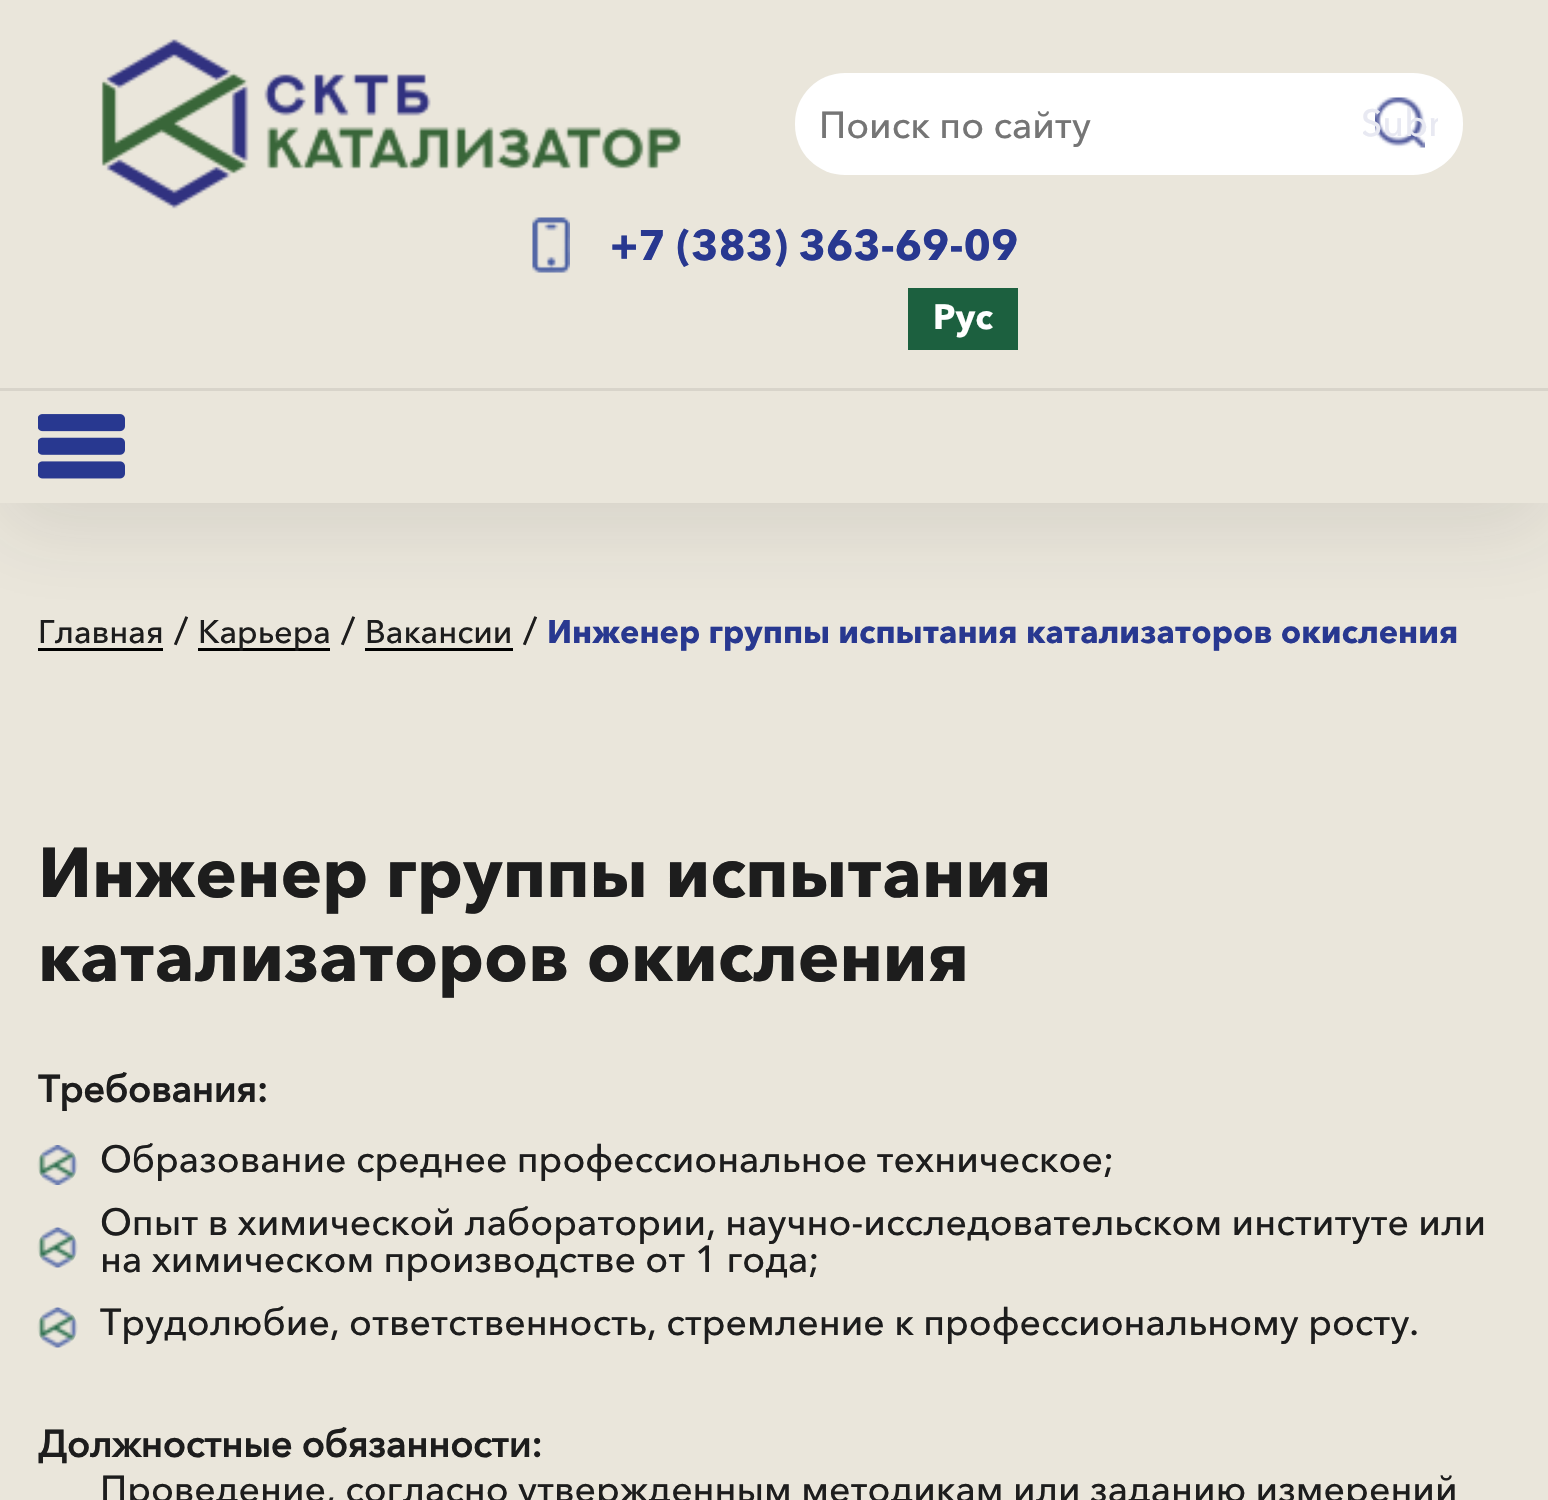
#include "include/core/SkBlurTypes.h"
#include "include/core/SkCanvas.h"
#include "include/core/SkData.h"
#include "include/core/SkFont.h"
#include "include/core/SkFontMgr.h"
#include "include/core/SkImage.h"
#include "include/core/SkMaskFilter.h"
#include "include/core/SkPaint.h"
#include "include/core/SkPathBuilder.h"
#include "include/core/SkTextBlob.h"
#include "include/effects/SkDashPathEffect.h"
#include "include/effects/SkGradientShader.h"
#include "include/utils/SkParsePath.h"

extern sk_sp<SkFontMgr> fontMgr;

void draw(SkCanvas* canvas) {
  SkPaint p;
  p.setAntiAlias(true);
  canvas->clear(SkColorSetRGB(234, 230, 219));
  p.setColor(SK_ColorBLACK);
  canvas->drawRect(SkRect::MakeLTRB(38, 648, 163, 651), p);
  canvas->drawRect(SkRect::MakeLTRB(198, 648, 330, 651), p);
  canvas->drawRect(SkRect::MakeLTRB(365, 648, 513, 651), p);
  canvas->save();
  canvas->clipPath(SkPathBuilder(SkPathFillType::kEvenOdd).moveTo(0, 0).lineTo(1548, 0).lineTo(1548, 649).lineTo(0, 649).close().moveTo(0, 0).lineTo(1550, 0).lineTo(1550, 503).lineTo(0, 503).close().detach(), true);
  p.setColor(SkColorSetARGB(28, 43, 48, 50));
  p.setMaskFilter(SkMaskFilter::MakeBlur(kNormal_SkBlurStyle, 40));
  canvas->drawRect(SkRect::MakeLTRB(0, 25, 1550, 528), p);
  p.setMaskFilter(nullptr);
  canvas->restore();
  p.setColor(SkColorSetRGB(216, 212, 202));
  canvas->drawRect(SkRect::MakeLTRB(0, 388, 1548, 391), p);
  canvas->drawImageRect(SkImages::DeferredFromEncodedData(SkData::MakeFromFileName("images/1.png")), SkRect::MakeLTRB(101, 39, 681, 209), SkSamplingOptions());
  p.setColor(SK_ColorWHITE);
  canvas->drawRoundRect(SkRect::MakeLTRB(795, 73, 1463, 175), 50, 50, p);
  canvas->drawImageRect(SkImages::DeferredFromEncodedData(SkData::MakeFromFileName("images/2.png")), SkRect::MakeLTRB(1375, 97, 1425, 148), SkSamplingOptions());
  canvas->drawImageRect(SkImages::DeferredFromEncodedData(SkData::MakeFromFileName("images/3.png")), SkRect::MakeLTRB(532, 217, 570, 273), SkSamplingOptions());
  p.setColor(SkColorSetRGB(28, 96, 63));
  canvas->drawRect(SkRect::MakeLTRB(908, 288, 1018, 350), p);
  canvas->drawImageRect(SkImages::DeferredFromEncodedData(SkData::MakeFromFileName("images/4.png")), SkRect::MakeLTRB(38, 414, 125, 479), SkSamplingOptions());
  canvas->drawImageRect(SkImages::DeferredFromEncodedData(SkData::MakeFromFileName("images/5.png")), SkRect::MakeLTRB(37, 1145, 78, 1185), SkSamplingOptions());
  canvas->drawImageRect(SkImages::DeferredFromEncodedData(SkData::MakeFromFileName("images/6.png")), SkRect::MakeLTRB(37, 1227, 78, 1268), SkSamplingOptions());
  canvas->drawImageRect(SkImages::DeferredFromEncodedData(SkData::MakeFromFileName("images/6.png")), SkRect::MakeLTRB(37, 1307, 78, 1348), SkSamplingOptions());
  SkFont font1(fontMgr->matchFamilyStyle("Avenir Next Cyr", SkFontStyle(500, SkFontStyle::kNormal_Width, SkFontStyle::kUpright_Slant)), 37.5f);
  font1.setSubpixel(true);
  p.setColor(SkColorSetRGB(117, 117, 117));
  canvas->drawString("Поиск по сайту", 819, 138, font1, p);
  canvas->save();
  canvas->clipRect(SkRect::MakeLTRB(1363, 85, 1438, 160));
  p.setColor(SkColorSetRGB(232, 233, 242));
  canvas->drawString("Subm", 1361, 136, font1, p);
  canvas->restore();
  SkFont font2(fontMgr->matchFamilyStyle("Avenir Next Cyr", SkFontStyle::Bold()), 42.5f);
  font2.setSubpixel(true);
  p.setColor(SkColorSetRGB(40, 56, 144));
  canvas->drawString("+7 (383) 363-69-09", 610, 260, font2, p);
  SkFont font3(fontMgr->matchFamilyStyle("Avenir Next Cyr", SkFontStyle::Bold()), 35);
  font3.setSubpixel(true);
  p.setColor(SK_ColorWHITE);
  canvas->drawString("Рус", 933, 329, font3, p);
  SkFont font4(fontMgr->matchFamilyStyle("Avenir Next Cyr", SkFontStyle(500, SkFontStyle::kNormal_Width, SkFontStyle::kUpright_Slant)), 32.5f);
  font4.setSubpixel(true);
  p.setColor(SkColorSetRGB(29, 29, 29));
  canvas->drawString("Главная", 38, 643, font4, p);
  canvas->drawString("/", 174, 644, font1, p);
  canvas->drawString("Карьера", 198, 643, font4, p);
  canvas->drawString("/", 341, 644, font1, p);
  canvas->drawString("Вакансии", 365, 643, font4, p);
  canvas->drawString("/", 523, 644, font1, p);
  SkFont font5(fontMgr->matchFamilyStyle("Avenir Next Cyr", SkFontStyle::Bold()), 32.5f);
  font5.setSubpixel(true);
  p.setColor(SkColorSetRGB(40, 56, 144));
  canvas->drawString("Инженер группы испытания катализаторов окисления", 547, 643, font5, p);
  SkFont font6(fontMgr->matchFamilyStyle("Avenir Next Cyr", SkFontStyle::Bold()), 70);
  font6.setSubpixel(true);
  p.setColor(SkColorSetRGB(29, 29, 29));
  canvas->drawString("Инженер группы испытания", 38, 897, font6, p);
  canvas->drawString("катализаторов окисления", 38, 981, font6, p);
  SkFont font7(fontMgr->matchFamilyStyle("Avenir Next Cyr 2", SkFontStyle::Bold()), 37.5f);
  font7.setSubpixel(true);
  canvas->drawString("Требования:", 38, 1102, font7, p);
  canvas->drawString("Образование среднее профессиональное техническое;", 100, 1172, font1, p);
  canvas->drawString("Опыт в химической лаборатории, научно-исследовательском институте или", 100, 1235, font1, p);
  canvas->drawString("на химическом производстве от 1 года;", 100, 1272, font1, p);
  canvas->drawString("Трудолюбие, ответственность, стремление к профессиональному росту.", 100, 1335, font1, p);
  canvas->drawString("Должностные обязанности:", 38, 1457, font7, p);
  canvas->drawString("Проведение, согласно утвержденным методикам или заданию измерений", 100, 1502, font1, p);
}
